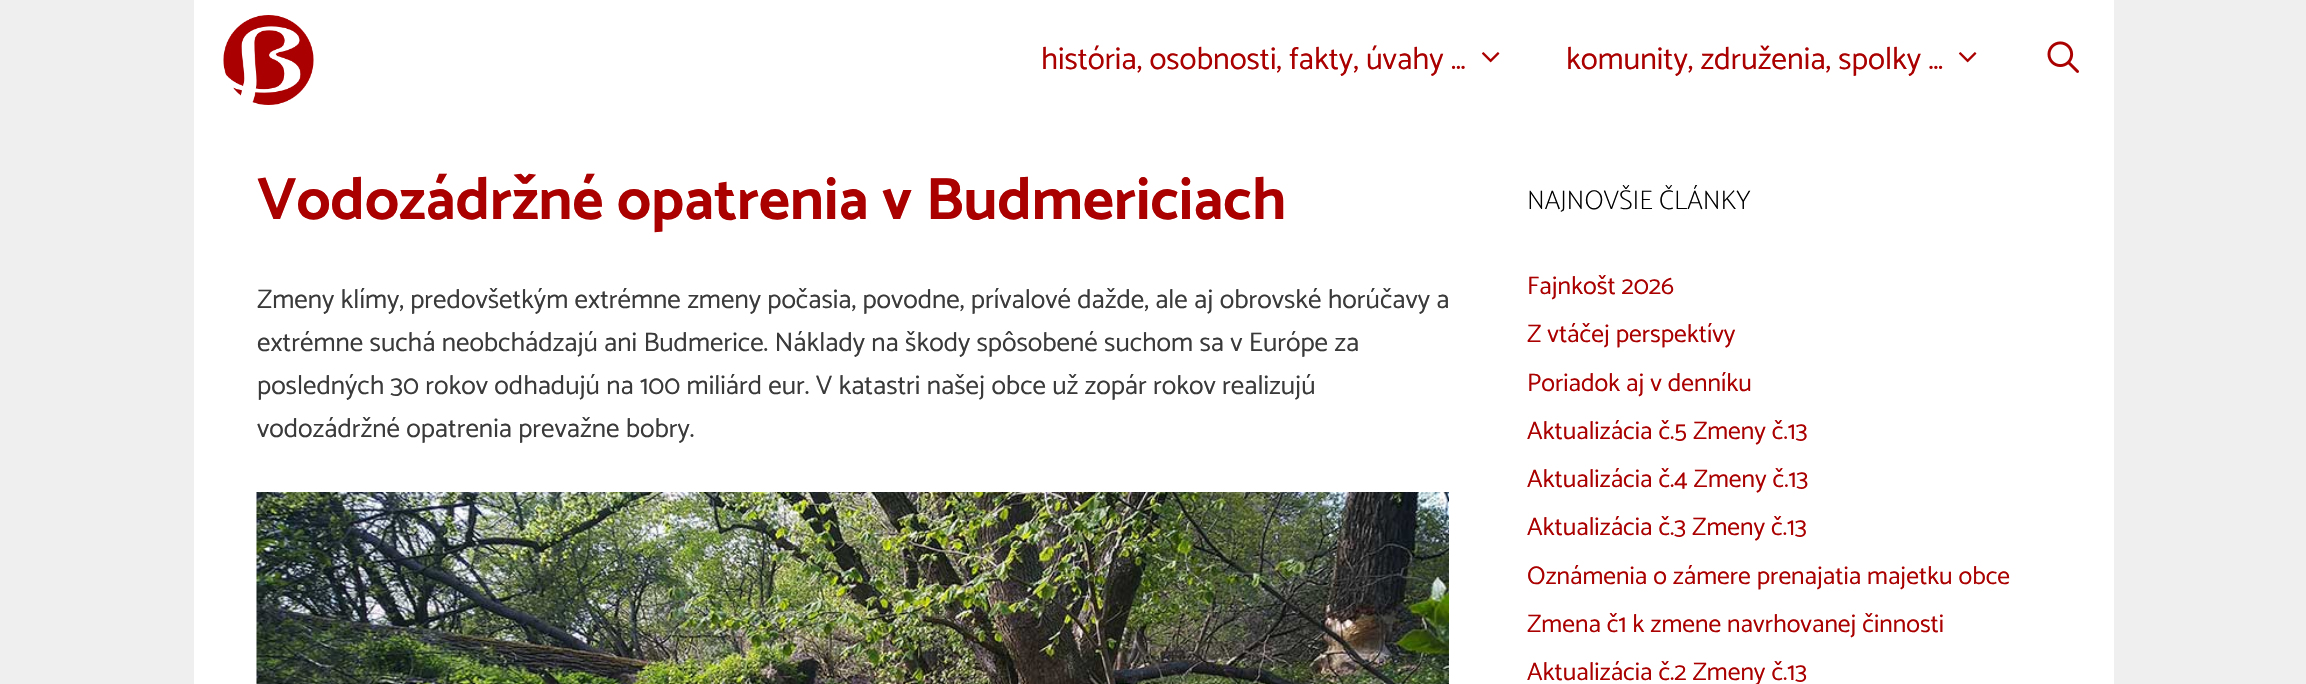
#include "include/core/SkBlurTypes.h"
#include "include/core/SkCanvas.h"
#include "include/core/SkData.h"
#include "include/core/SkFont.h"
#include "include/core/SkFontMgr.h"
#include "include/core/SkImage.h"
#include "include/core/SkMaskFilter.h"
#include "include/core/SkPaint.h"
#include "include/core/SkPathBuilder.h"
#include "include/core/SkTextBlob.h"
#include "include/effects/SkDashPathEffect.h"
#include "include/effects/SkGradientShader.h"
#include "include/utils/SkParsePath.h"

extern sk_sp<SkFontMgr> fontMgr;

void draw(SkCanvas* canvas) {
  SkPaint p;
  p.setAntiAlias(true);
  canvas->clear(SkColorSetRGB(239, 239, 239));
  p.setColor(SK_ColorWHITE);
  canvas->drawRect(SkRect::MakeLTRB(194, 0, 2114, 684), p);
  canvas->drawImageRect(SkImages::DeferredFromEncodedData(SkData::MakeFromFileName("images/1.png")), SkRect::MakeLTRB(223, 15, 314, 105), SkSamplingOptions());
  canvas->drawImageRect(SkImages::DeferredFromEncodedData(SkData::MakeFromFileName("images/2.png")), SkRect::MakeLTRB(1481, 52, 1500, 63), SkSamplingOptions());
  canvas->drawImageRect(SkImages::DeferredFromEncodedData(SkData::MakeFromFileName("images/2.png")), SkRect::MakeLTRB(1958, 52, 1977, 63), SkSamplingOptions());
  canvas->drawImageRect(SkImages::DeferredFromEncodedData(SkData::MakeFromFileName("images/3.png")), SkRect::MakeLTRB(2047, 41, 2079, 73), SkSamplingOptions());
  canvas->drawImageRect(SkImages::DeferredFromEncodedData(SkData::MakeFromFileName("images/4.png")), SkRect::MakeLTRB(256, 492, 1449, 684), SkSamplingOptions());
  SkFont font1(fontMgr->matchFamilyStyle("Catamaran", SkFontStyle::Normal()), 31.5f);
  font1.setSubpixel(true);
  p.setColor(SkColorSetRGB(170, 0, 0));
  canvas->drawString("história, osobnosti, fakty, úvahy …", 1041, 69, font1, p);
  canvas->drawString("komunity, združenia, spolky …", 1566, 69, font1, p);
  SkFont font2(fontMgr->matchFamilyStyle("Catamaran", SkFontStyle::Bold()), 60);
  font2.setSubpixel(true);
  canvas->drawString("Vodozádržné opatrenia v Budmericiach", 257, 219, font2, p);
  SkFont font3(fontMgr->matchFamilyStyle("Catamaran", SkFontStyle::Normal()), 27);
  font3.setSubpixel(true);
  p.setColor(SkColorSetRGB(58, 58, 58));
  canvas->drawString("Zmeny klímy, predovšetkým extrémne zmeny počasia, povodne, prívalové dažde, ale aj obrovské horúčavy a", 257, 308, font3, p);
  canvas->drawString("extrémne suchá neobchádzajú ani Budmerice. Náklady na škody spôsobené suchom sa v Európe za", 257, 351, font3, p);
  canvas->drawString("posledných 30 rokov odhadujú na 100 miliárd eur. V katastri našej obce už zopár rokov realizujú", 257, 394, font3, p);
  canvas->drawString("vodozádržné opatrenia prevažne bobry.", 257, 437, font3, p);
  SkFont font4(fontMgr->matchFamilyStyle("Catamaran", SkFontStyle(100, SkFontStyle::kNormal_Width, SkFontStyle::kUpright_Slant)), 27);
  font4.setSubpixel(true);
  p.setColor(SK_ColorBLACK);
  canvas->drawString("NAJNOVŠIE ČLÁNKY", 1527, 209, font4, p);
  SkFont font5(fontMgr->matchFamilyStyle("Catamaran", SkFontStyle::Normal()), 25.5f);
  font5.setSubpixel(true);
  p.setColor(SkColorSetRGB(170, 0, 0));
  canvas->drawString("Fajnkošt 2026", 1527, 294, font5, p);
  canvas->drawString("Z vtáčej perspektívy", 1527, 342, font5, p);
  canvas->drawString("Poriadok aj v denníku", 1527, 391, font5, p);
  canvas->drawString("Aktualizácia č.5 Zmeny č.13", 1527, 439, font5, p);
  canvas->drawString("Aktualizácia č.4 Zmeny č.13", 1527, 487, font5, p);
  canvas->drawString("Aktualizácia č.3 Zmeny č.13", 1527, 535, font5, p);
  canvas->drawString("Oznámenia o zámere prenajatia majetku obce", 1527, 584, font5, p);
  canvas->drawString("Zmena č1 k zmene navrhovanej činnosti", 1527, 632, font5, p);
  canvas->drawString("Aktualizácia č.2 Zmeny č.13", 1527, 680, font5, p);
}
